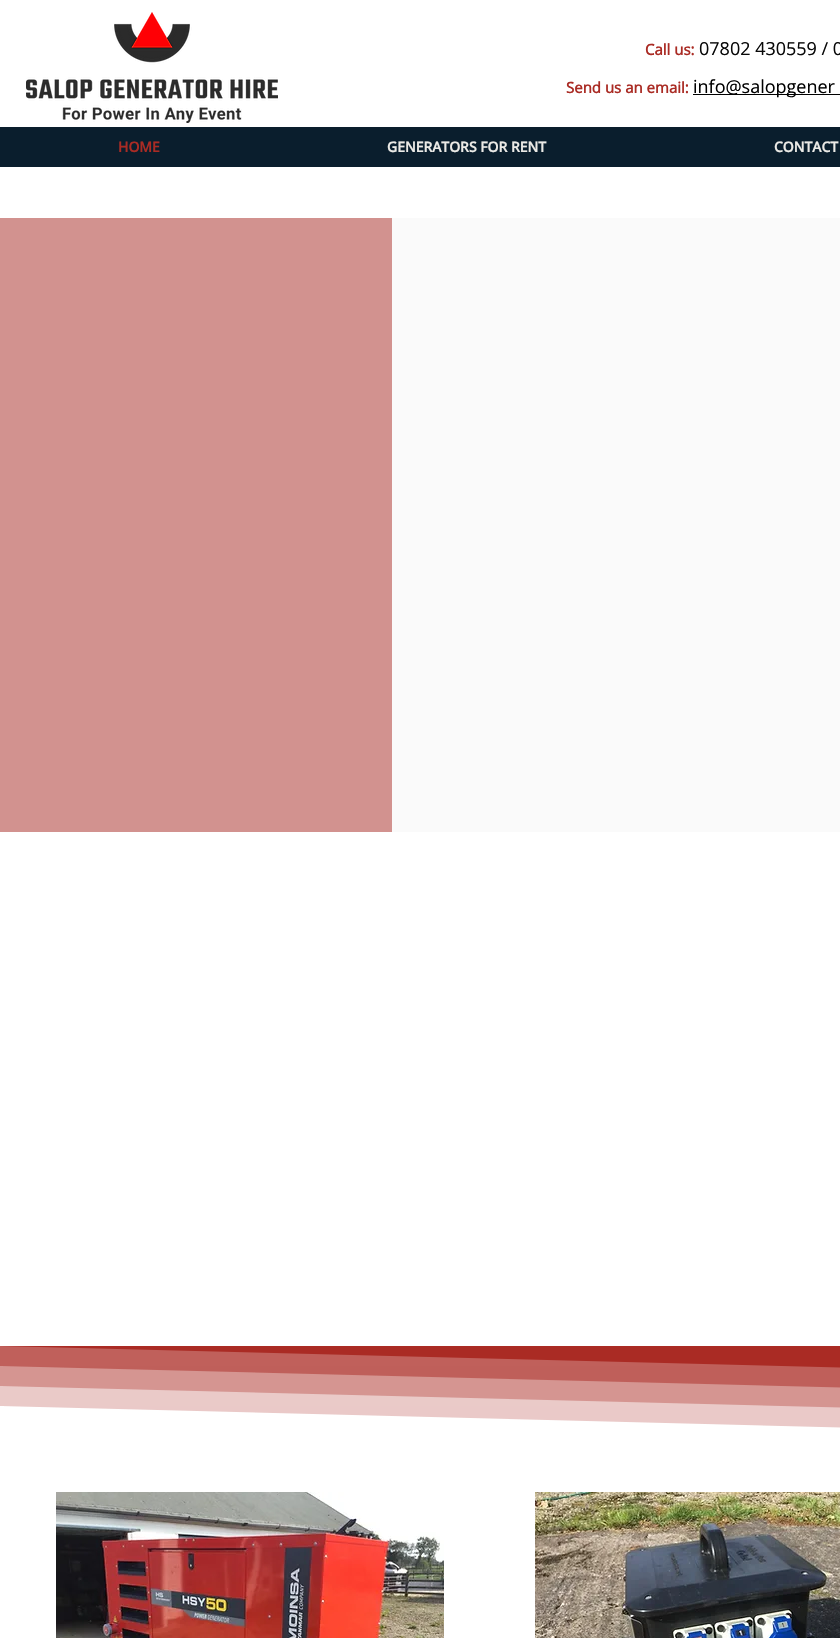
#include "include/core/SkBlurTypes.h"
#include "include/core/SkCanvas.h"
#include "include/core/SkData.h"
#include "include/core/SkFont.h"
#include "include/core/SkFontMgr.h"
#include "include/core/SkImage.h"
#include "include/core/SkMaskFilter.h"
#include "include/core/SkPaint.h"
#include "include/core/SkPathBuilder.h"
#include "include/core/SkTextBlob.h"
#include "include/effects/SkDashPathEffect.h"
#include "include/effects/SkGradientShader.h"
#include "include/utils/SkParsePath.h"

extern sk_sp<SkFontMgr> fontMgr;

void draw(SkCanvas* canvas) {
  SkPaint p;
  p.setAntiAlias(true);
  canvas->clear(SK_ColorWHITE);
  canvas->drawImageRect(SkImages::DeferredFromEncodedData(SkData::MakeFromFileName("images/1.png")), SkRect::MakeLTRB(26, 12, 278, 123), SkSamplingOptions());
  p.setColor(SK_ColorBLACK);
  canvas->drawRect(SkRect::MakeLTRB(693, 94, 840, 95), p);
  p.setColor(SkColorSetRGB(10, 30, 45));
  canvas->drawRect(SkRect::MakeLTRB(0, 127, 840, 167), p);
  p.setColor(SkColorSetRGB(210, 146, 143));
  canvas->drawRect(SkRect::MakeLTRB(0, 218, 392, 832), p);
  p.setColor(SkColorSetRGB(250, 250, 250));
  canvas->drawRect(SkRect::MakeLTRB(392, 218, 840, 832), p);
  canvas->drawImageRect(SkImages::DeferredFromEncodedData(SkData::MakeFromFileName("images/4.png")), SkRect::MakeLTRB(4, 1406, 840, 1428), SkSamplingOptions());
  p.setColor(SkColorSetRGB(234, 202, 200));
  canvas->drawRect(SkRect::MakeLTRB(0, 1386, 840, 1406), p);
  canvas->drawImageRect(SkImages::DeferredFromEncodedData(SkData::MakeFromFileName("images/3.png")), SkRect::MakeLTRB(3, 1386, 840, 1408), SkSamplingOptions());
  p.setColor(SkColorSetRGB(213, 149, 145));
  canvas->drawRect(SkRect::MakeLTRB(0, 1366, 840, 1386), p);
  canvas->drawImageRect(SkImages::DeferredFromEncodedData(SkData::MakeFromFileName("images/2.png")), SkRect::MakeLTRB(3, 1366, 840, 1388), SkSamplingOptions());
  p.setColor(SkColorSetRGB(192, 96, 91));
  canvas->drawRect(SkRect::MakeLTRB(0, 1346, 784, 1366), p);
  p.setColor(SkColorSetRGB(170, 43, 36));
  canvas->drawPath(SkPathBuilder().moveTo(0, 1346).lineTo(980, 1371).lineTo(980, 1346).close().detach(), p);
  canvas->drawImageRect(SkImages::DeferredFromEncodedData(SkData::MakeFromFileName("images/5.png")), SkRect::MakeLTRB(56, 1492, 444, 1638), SkSamplingOptions());
  canvas->drawImageRect(SkImages::DeferredFromEncodedData(SkData::MakeFromFileName("images/6.png")), SkRect::MakeLTRB(535, 1492, 840, 1638), SkSamplingOptions());
  SkFont font1(fontMgr->matchFamilyStyle("Open Sans", SkFontStyle::Bold()), 15);
  font1.setSubpixel(true);
  canvas->drawString("Call us:", 645, 55, font1, p);
  SkFont font2(fontMgr->matchFamilyStyle("Open Sans", SkFontStyle::Normal()), 18);
  font2.setSubpixel(true);
  p.setColor(SkColorSetRGB(9, 9, 9));
  canvas->drawString("07802 430559 / 0", 699, 55, font2, p);
  p.setColor(SkColorSetRGB(170, 43, 36));
  canvas->drawString("Send us an email:", 566, 93, font1, p);
  p.setColor(SK_ColorBLACK);
  canvas->drawString("info@salopgener", 693, 93, font2, p);
  SkFont font3(fontMgr->matchFamilyStyle("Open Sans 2", SkFontStyle::Bold()), 14);
  font3.setSubpixel(true);
  p.setColor(SkColorSetRGB(170, 43, 36));
  canvas->drawString("HOME", 118, 152, font3, p);
  p.setColor(SkColorSetRGB(235, 234, 230));
  canvas->drawString("GENERATORS FOR RENT", 387, 152, font3, p);
  canvas->drawString("CONTACT", 774, 152, font3, p);
}
